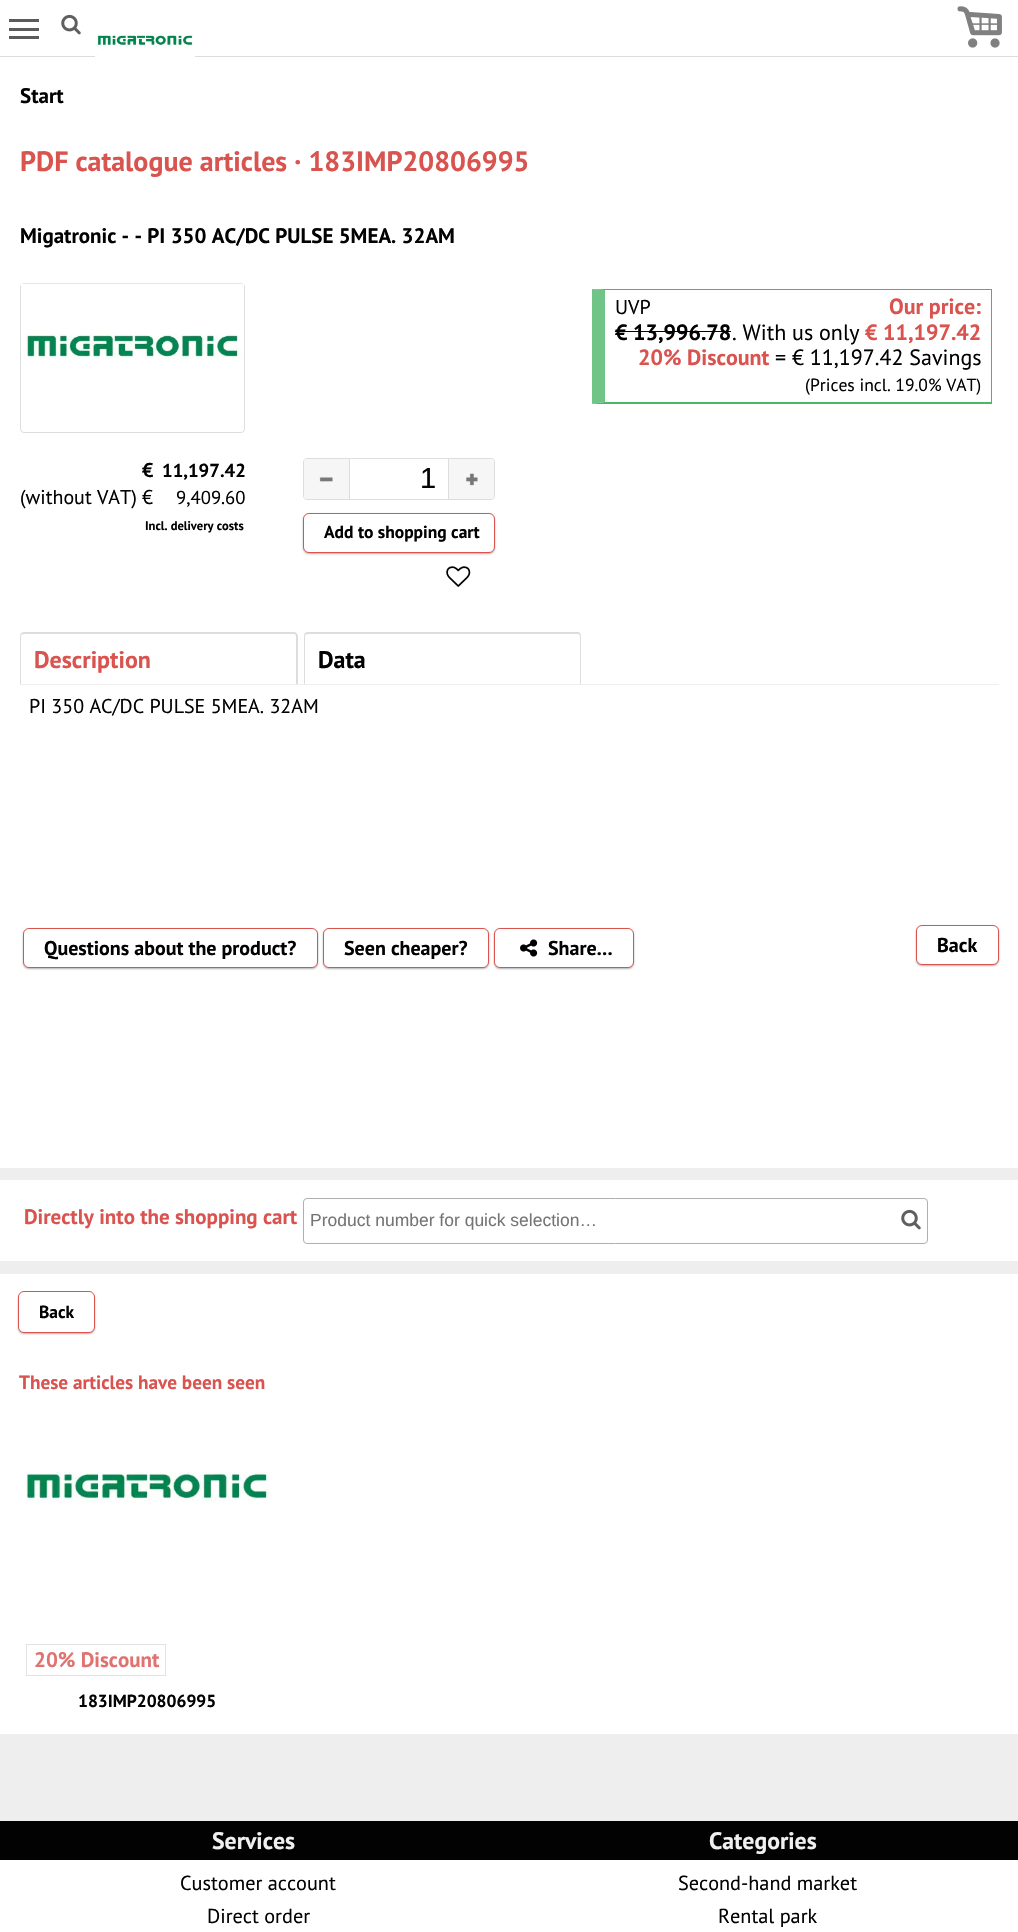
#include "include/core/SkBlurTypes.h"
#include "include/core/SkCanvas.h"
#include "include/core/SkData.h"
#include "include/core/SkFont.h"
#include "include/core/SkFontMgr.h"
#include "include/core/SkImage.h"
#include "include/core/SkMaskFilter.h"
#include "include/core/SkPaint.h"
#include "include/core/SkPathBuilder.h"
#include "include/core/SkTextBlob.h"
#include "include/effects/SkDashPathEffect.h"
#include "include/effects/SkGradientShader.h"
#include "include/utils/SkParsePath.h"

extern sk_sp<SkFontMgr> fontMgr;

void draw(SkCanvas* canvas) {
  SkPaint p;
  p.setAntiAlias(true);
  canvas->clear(SkColorSetRGB(238, 238, 238));
  p.setColor(SK_ColorWHITE);
  canvas->drawRect(SkRect::MakeLTRB(0, 0, 1018, 1168), p);
  p.setColor(SkColorSetRGB(221, 221, 221));
  canvas->drawRect(SkRect::MakeLTRB(0, 56, 1018, 57), p);
  p.setColor(SkColorSetRGB(91, 91, 91));
  canvas->drawRect(SkRect::MakeLTRB(9, 28, 39, 31), p);
  canvas->drawRect(SkRect::MakeLTRB(9, 19, 39, 22), p);
  canvas->drawRect(SkRect::MakeLTRB(9, 36, 39, 39), p);
  canvas->drawImageRect(SkImages::DeferredFromEncodedData(SkData::MakeFromFileName("images/1.png")), SkRect::MakeLTRB(957, 6, 1002, 48), SkSamplingOptions());
  canvas->drawImageRect(SkImages::DeferredFromEncodedData(SkData::MakeFromFileName("images/2.png")), SkRect::MakeLTRB(61, 14, 81, 35), SkSamplingOptions());
  canvas->drawImageRect(SkImages::DeferredFromEncodedData(SkData::MakeFromFileName("images/3.png")), SkRect::MakeLTRB(95, 34, 195, 57), SkSamplingOptions());
  p.setStyle(SkPaint::kStroke_Style);
  p.setStrokeWidth(1);
  p.setColor(SkColorSetRGB(221, 221, 221));
  canvas->drawRoundRect(SkRect::MakeLTRB(20.5f, 283.5f, 244.5f, 432.5f), 3.5f, 3.5f, p);
  canvas->drawImageRect(SkImages::DeferredFromEncodedData(SkData::MakeFromFileName("images/4.png")), SkRect::MakeLTRB(21, 283, 244, 360), SkSamplingOptions());
  p.setStyle(SkPaint::kFill_Style);
  p.setColor(SkColorSetRGB(76, 181, 102));
  canvas->drawPath(SkPathBuilder().moveTo(592, 289).lineTo(992, 289).lineTo(991, 290).lineTo(605, 290).close().detach(), p);
  canvas->drawRect(SkRect::MakeLTRB(991, 289, 992, 404), p);
  canvas->drawPath(SkPathBuilder().moveTo(992, 404).lineTo(592, 404).lineTo(605, 402).lineTo(991, 402).close().detach(), p);
  p.setColor(SkColorSetARGB(204, 76, 181, 102));
  canvas->drawPath(SkPathBuilder().moveTo(592, 404).lineTo(592, 289).lineTo(605, 290).lineTo(605, 402).close().detach(), p);
  p.setColor(SkColorSetRGB(2, 2, 2));
  canvas->drawRect(SkRect::MakeLTRB(615, 331, 731, 332), p);
  p.setStyle(SkPaint::kStroke_Style);
  p.setColor(SkColorSetRGB(221, 221, 221));
  canvas->drawRoundRect(SkRect::MakeLTRB(303.5f, 458.5f, 494.5f, 499.5f), 3.5f, 3.5f, p);
  p.setStyle(SkPaint::kFill_Style);
  p.setColor(SkColorSetRGB(246, 246, 246));
  canvas->drawPath(SkPathBuilder().moveTo(306.5f, 459).lineTo(350, 459).lineTo(350, 499).lineTo(306.5f, 499).cubicTo(305, 499, 304, 498, 304, 496.5f).lineTo(304, 461.5f).cubicTo(304, 460, 305, 459, 306.5f, 459).close().detach(), p);
  p.setColor(SkColorSetRGB(221, 221, 221));
  canvas->drawRect(SkRect::MakeLTRB(349, 459, 350, 499), p);
  canvas->drawImageRect(SkImages::DeferredFromEncodedData(SkData::MakeFromFileName("images/5.png")), SkRect::MakeLTRB(319, 477, 333, 482), SkSamplingOptions());
  canvas->save();
  canvas->clipPath(SkPathBuilder().moveTo(306.5f, 459).lineTo(491.5f, 459).cubicTo(493, 459, 494, 460, 494, 461.5f).lineTo(494, 496.5f).cubicTo(494, 498, 493, 499, 491.5f, 499).lineTo(306.5f, 499).cubicTo(305, 499, 304, 498, 304, 496.5f).lineTo(304, 461.5f).cubicTo(304, 460, 305, 459, 306.5f, 459).close().detach(), true);
  p.setColor(SkColorSetRGB(246, 246, 246));
  canvas->drawPath(SkPathBuilder().moveTo(448, 459).lineTo(490, 459).cubicTo(492, 459, 494, 461, 494, 463).lineTo(494, 496.5f).cubicTo(494, 498, 493, 499, 491.5f, 499).lineTo(448, 499).close().detach(), p);
  canvas->restore();
  p.setColor(SkColorSetRGB(221, 221, 221));
  canvas->drawRect(SkRect::MakeLTRB(448, 459, 449, 499), p);
  canvas->drawImageRect(SkImages::DeferredFromEncodedData(SkData::MakeFromFileName("images/6.png")), SkRect::MakeLTRB(466, 473, 478, 486), SkSamplingOptions());
  p.setColor(SkColorSetARGB(77, 0, 0, 0));
  p.setMaskFilter(SkMaskFilter::MakeBlur(kNormal_SkBlurStyle, 1));
  canvas->drawRoundRect(SkRect::MakeLTRB(303, 514, 495, 554), 6, 6, p);
  p.setMaskFilter(nullptr);
  p.setColor(SK_ColorWHITE);
  canvas->drawRoundRect(SkRect::MakeLTRB(303.5f, 513.5f, 494.5f, 552.5f), 5.5f, 5.5f, p);
  p.setStyle(SkPaint::kStroke_Style);
  p.setColor(SkColorSetRGB(217, 83, 79));
  canvas->drawRoundRect(SkRect::MakeLTRB(303.5f, 513.5f, 494.5f, 552.5f), 5.5f, 5.5f, p);
  canvas->drawImageRect(SkImages::DeferredFromEncodedData(SkData::MakeFromFileName("images/7.png")), SkRect::MakeLTRB(446, 566, 471, 587), SkSamplingOptions());
  p.setStyle(SkPaint::kFill_Style);
  p.setColor(SkColorSetRGB(221, 221, 221));
  canvas->drawPath(SkPathBuilder(SkPathFillType::kEvenOdd).moveTo(24, 632).lineTo(294, 632).cubicTo(296, 632, 298, 634, 298, 636).lineTo(298, 684).lineTo(20, 684).lineTo(20, 636).cubicTo(20, 634, 22, 632, 24, 632).close().moveTo(24, 634).lineTo(294, 634).cubicTo(295, 634, 296, 635, 296, 636).lineTo(296, 684).lineTo(21, 684).lineTo(21, 636).cubicTo(21, 635, 22, 634, 24, 634).close().detach(), p);
  canvas->drawPath(SkPathBuilder(SkPathFillType::kEvenOdd).moveTo(308, 632).lineTo(578, 632).cubicTo(580, 632, 581, 634, 581, 636).lineTo(581, 684).lineTo(304, 684).lineTo(304, 636).cubicTo(304, 634, 305, 632, 308, 632).close().moveTo(308, 634).lineTo(578, 634).cubicTo(579, 634, 580, 635, 580, 636).lineTo(580, 684).lineTo(305, 684).lineTo(305, 636).cubicTo(305, 635, 306, 634, 308, 634).close().detach(), p);
  p.setColor(SkColorSetRGB(238, 238, 238));
  canvas->drawRect(SkRect::MakeLTRB(20, 684, 999, 685), p);
  p.setColor(SkColorSetARGB(77, 0, 0, 0));
  p.setMaskFilter(SkMaskFilter::MakeBlur(kNormal_SkBlurStyle, 1));
  canvas->drawRoundRect(SkRect::MakeLTRB(23, 929, 318, 969), 6, 6, p);
  p.setMaskFilter(nullptr);
  p.setColor(SK_ColorWHITE);
  canvas->drawRoundRect(SkRect::MakeLTRB(23.5f, 928.5f, 317.5f, 967.5f), 5.5f, 5.5f, p);
  p.setStyle(SkPaint::kStroke_Style);
  p.setColor(SkColorSetRGB(217, 83, 79));
  canvas->drawRoundRect(SkRect::MakeLTRB(23.5f, 928.5f, 317.5f, 967.5f), 5.5f, 5.5f, p);
  p.setStyle(SkPaint::kFill_Style);
  p.setColor(SkColorSetARGB(77, 0, 0, 0));
  p.setMaskFilter(SkMaskFilter::MakeBlur(kNormal_SkBlurStyle, 1));
  canvas->drawRoundRect(SkRect::MakeLTRB(323, 929, 489, 969), 6, 6, p);
  p.setMaskFilter(nullptr);
  p.setColor(SK_ColorWHITE);
  canvas->drawRoundRect(SkRect::MakeLTRB(323.5f, 928.5f, 488.5f, 967.5f), 5.5f, 5.5f, p);
  p.setStyle(SkPaint::kStroke_Style);
  p.setColor(SkColorSetRGB(217, 83, 79));
  canvas->drawRoundRect(SkRect::MakeLTRB(323.5f, 928.5f, 488.5f, 967.5f), 5.5f, 5.5f, p);
  p.setStyle(SkPaint::kFill_Style);
  p.setColor(SkColorSetARGB(77, 0, 0, 0));
  p.setMaskFilter(SkMaskFilter::MakeBlur(kNormal_SkBlurStyle, 1));
  canvas->drawRoundRect(SkRect::MakeLTRB(494, 929, 634, 969), 6, 6, p);
  p.setMaskFilter(nullptr);
  p.setColor(SK_ColorWHITE);
  canvas->drawRoundRect(SkRect::MakeLTRB(494.5f, 928.5f, 633.5f, 967.5f), 5.5f, 5.5f, p);
  p.setStyle(SkPaint::kStroke_Style);
  p.setColor(SkColorSetRGB(217, 83, 79));
  canvas->drawRoundRect(SkRect::MakeLTRB(494.5f, 928.5f, 633.5f, 967.5f), 5.5f, 5.5f, p);
  canvas->drawImageRect(SkImages::DeferredFromEncodedData(SkData::MakeFromFileName("images/8.png")), SkRect::MakeLTRB(520, 939, 538, 957), SkSamplingOptions());
  p.setStyle(SkPaint::kFill_Style);
  p.setColor(SkColorSetARGB(77, 0, 0, 0));
  p.setMaskFilter(SkMaskFilter::MakeBlur(kNormal_SkBlurStyle, 1));
  canvas->drawRoundRect(SkRect::MakeLTRB(916, 926, 999, 966), 6, 6, p);
  p.setMaskFilter(nullptr);
  p.setColor(SK_ColorWHITE);
  canvas->drawRoundRect(SkRect::MakeLTRB(916.5f, 925.5f, 998.5f, 964.5f), 5.5f, 5.5f, p);
  p.setStyle(SkPaint::kStroke_Style);
  p.setColor(SkColorSetRGB(217, 83, 79));
  canvas->drawRoundRect(SkRect::MakeLTRB(916.5f, 925.5f, 998.5f, 964.5f), 5.5f, 5.5f, p);
  p.setStyle(SkPaint::kFill_Style);
  p.setColor(SK_ColorWHITE);
  canvas->drawRect(SkRect::MakeLTRB(0, 1180, 1018, 1261), p);
  p.setStyle(SkPaint::kStroke_Style);
  p.setColor(SkColorSetRGB(175, 175, 175));
  canvas->drawRoundRect(SkRect::MakeLTRB(303.5f, 1198.5f, 927.5f, 1243.5f), 3.5f, 3.5f, p);
  canvas->drawImageRect(SkImages::DeferredFromEncodedData(SkData::MakeFromFileName("images/9.png")), SkRect::MakeLTRB(901, 1209, 921, 1230), SkSamplingOptions());
  p.setStyle(SkPaint::kFill_Style);
  p.setColor(SK_ColorWHITE);
  canvas->drawRect(SkRect::MakeLTRB(0, 1274, 1018, 1734), p);
  p.setColor(SkColorSetARGB(77, 0, 0, 0));
  p.setMaskFilter(SkMaskFilter::MakeBlur(kNormal_SkBlurStyle, 1));
  canvas->drawRoundRect(SkRect::MakeLTRB(18, 1293, 95, 1334), 6, 6, p);
  p.setMaskFilter(nullptr);
  p.setColor(SK_ColorWHITE);
  canvas->drawRoundRect(SkRect::MakeLTRB(18.5f, 1291.5f, 94.5f, 1332.5f), 5.5f, 5.5f, p);
  p.setStyle(SkPaint::kStroke_Style);
  p.setColor(SkColorSetRGB(217, 83, 79));
  canvas->drawRoundRect(SkRect::MakeLTRB(18.5f, 1291.5f, 94.5f, 1332.5f), 5.5f, 5.5f, p);
  canvas->drawImageRect(SkImages::DeferredFromEncodedData(SkData::MakeFromFileName("images/10.png")), SkRect::MakeLTRB(25, 1471, 269, 1503), SkSamplingOptions());
  p.setColor(SkColorSetRGB(227, 227, 227));
  canvas->drawRect(SkRect::MakeLTRB(26.5f, 1644.5f, 165.5f, 1675.5f), p);
  p.setStyle(SkPaint::kFill_Style);
  p.setColor(SK_ColorWHITE);
  canvas->drawRect(SkRect::MakeLTRB(0, 1860, 1018, 1932), p);
  p.setColor(SkColorSetRGB(2, 2, 2));
  canvas->drawRect(SkRect::MakeLTRB(0, 1821, 1018, 1860), p);
  SkFont font1(fontMgr->matchFamilyStyle("PT Sans", SkFontStyle::Bold()), 21);
  font1.setSubpixel(true);
  canvas->drawString("Start", 20, 103, font1, p);
  SkFont font2(fontMgr->matchFamilyStyle("PT Sans", SkFontStyle::Bold()), 28);
  font2.setSubpixel(true);
  p.setColor(SkColorSetRGB(217, 83, 79));
  canvas->drawString("PDF catalogue articles · 183IMP20806995", 20, 171, font2, p);
  p.setColor(SkColorSetRGB(2, 2, 2));
  canvas->drawString("Migatronic - - PI 350 AC/DC PULSE 5MEA. 32AM", 20, 243, font1, p);
  SkFont font3(fontMgr->matchFamilyStyle("PT Sans", SkFontStyle::Normal()), 20);
  font3.setSubpixel(true);
  canvas->drawString("UVP", 615, 314, font3, p);
  SkFont font4(fontMgr->matchFamilyStyle("PT Sans", SkFontStyle::Bold()), 22);
  font4.setSubpixel(true);
  p.setColor(SkColorSetRGB(217, 83, 79));
  canvas->drawString("Our price:", 889, 314, font4, p);
  p.setColor(SkColorSetRGB(2, 2, 2));
  canvas->drawString("€ 13,996.78", 615, 340, font4, p);
  SkFont font5(fontMgr->matchFamilyStyle("PT Sans", SkFontStyle::Normal()), 22);
  font5.setSubpixel(true);
  canvas->drawString(". With us only", 732, 340, font5, p);
  p.setColor(SkColorSetRGB(217, 83, 79));
  canvas->drawString("€ 11,197.42", 865, 340, font4, p);
  canvas->drawString("20% Discount", 638, 365, font4, p);
  p.setColor(SkColorSetRGB(2, 2, 2));
  canvas->drawString("= € 11,197.42 Savings", 775, 365, font5, p);
  SkFont font6(fontMgr->matchFamilyStyle("PT Sans", SkFontStyle::Normal()), 17.6f);
  font6.setSubpixel(true);
  canvas->drawString("(Prices incl. 19.0% VAT)", 805, 391, font6, p);
  SkFont font7(fontMgr->matchFamilyStyle("PT Sans", SkFontStyle::Bold()), 20);
  font7.setSubpixel(true);
  canvas->drawString("€", 142, 477, font7, p);
  SkFont font8(fontMgr->matchFamilyStyle("PT Sans", SkFontStyle::Bold()), 18.75f);
  font8.setSubpixel(true);
  canvas->drawString("11,197.42", 162, 477, font8, p);
  canvas->drawString("(without VAT) €", 20, 504, font3, p);
  SkFont font9(fontMgr->matchFamilyStyle("PT Sans", SkFontStyle::Normal()), 18.75f);
  font9.setSubpixel(true);
  canvas->drawString("9,409.60", 176, 504, font9, p);
  SkFont font10(fontMgr->matchFamilyStyle("PT Sans", SkFontStyle::Bold()), 12.5f);
  font10.setSubpixel(true);
  canvas->drawString("Incl. delivery costs", 145, 530, font10, p);
  SkFont font11(fontMgr->matchFamilyStyle("Liberation Sans", SkFontStyle::Normal()), 29);
  font11.setSubpixel(true);
  canvas->drawString("1", 420, 488, font11, p);
  SkFont font12(fontMgr->matchFamilyStyle("PT Sans", SkFontStyle::Bold()), 17.5f);
  font12.setSubpixel(true);
  canvas->drawString("Add to shopping cart", 324, 538, font12, p);
  SkFont font13(fontMgr->matchFamilyStyle("PT Sans", SkFontStyle::Bold()), 24);
  font13.setSubpixel(true);
  p.setColor(SkColorSetRGB(217, 83, 79));
  canvas->drawString("Description", 34, 668, font13, p);
  p.setColor(SkColorSetRGB(2, 2, 2));
  canvas->drawString("Data", 318, 668, font13, p);
  canvas->drawString("PI 350 AC/DC PULSE 5MEA. 32AM", 29, 713, font3, p);
  canvas->drawString("Questions about the product?", 44, 955, font7, p);
  canvas->drawString("Seen cheaper?", 344, 955, font7, p);
  canvas->drawString("Share…", 548, 955, font7, p);
  canvas->drawString("Back", 937, 952, font7, p);
  p.setColor(SkColorSetRGB(217, 83, 79));
  canvas->drawString("Directly into the shopping cart", 24, 1224, font1, p);
  SkFont font14(fontMgr->matchFamilyStyle("Liberation Sans", SkFontStyle::Normal()), 17.5f);
  font14.setSubpixel(true);
  p.setColor(SkColorSetRGB(117, 117, 117));
  canvas->drawString("Product number for quick selection…", 310, 1226, font14, p);
  p.setColor(SkColorSetRGB(2, 2, 2));
  canvas->drawString("Back", 39, 1318, font12, p);
  SkFont font15(fontMgr->matchFamilyStyle("PT Sans", SkFontStyle::Bold()), 19.25f);
  font15.setSubpixel(true);
  p.setColor(SkColorSetRGB(217, 83, 79));
  canvas->drawString("These articles have been seen", 19, 1389, font15, p);
  p.setColor(SkColorSetRGB(224, 114, 111));
  canvas->drawString("20% Discount", 34, 1667, font1, p);
  p.setColor(SkColorSetRGB(2, 2, 2));
  canvas->drawString("183IMP20806995", 78, 1707, font12, p);
  SkFont font16(fontMgr->matchFamilyStyle("PT Sans", SkFontStyle::Bold()), 23.75f);
  font16.setSubpixel(true);
  p.setColor(SkColorSetRGB(240, 240, 240));
  canvas->drawString("Services", 212, 1849, font16, p);
  SkFont font17(fontMgr->matchFamilyStyle("PT Sans", SkFontStyle::Normal()), 20.25f);
  font17.setSubpixel(true);
  p.setColor(SkColorSetRGB(2, 2, 2));
  canvas->drawString("Customer account", 180, 1890, font17, p);
  canvas->drawString("Direct order", 207, 1923, font17, p);
  p.setColor(SkColorSetRGB(240, 240, 240));
  canvas->drawString("Categories", 709, 1849, font16, p);
  p.setColor(SkColorSetRGB(2, 2, 2));
  canvas->drawString("Second-hand market", 678, 1890, font17, p);
  canvas->drawString("Rental park", 718, 1923, font17, p);
}
